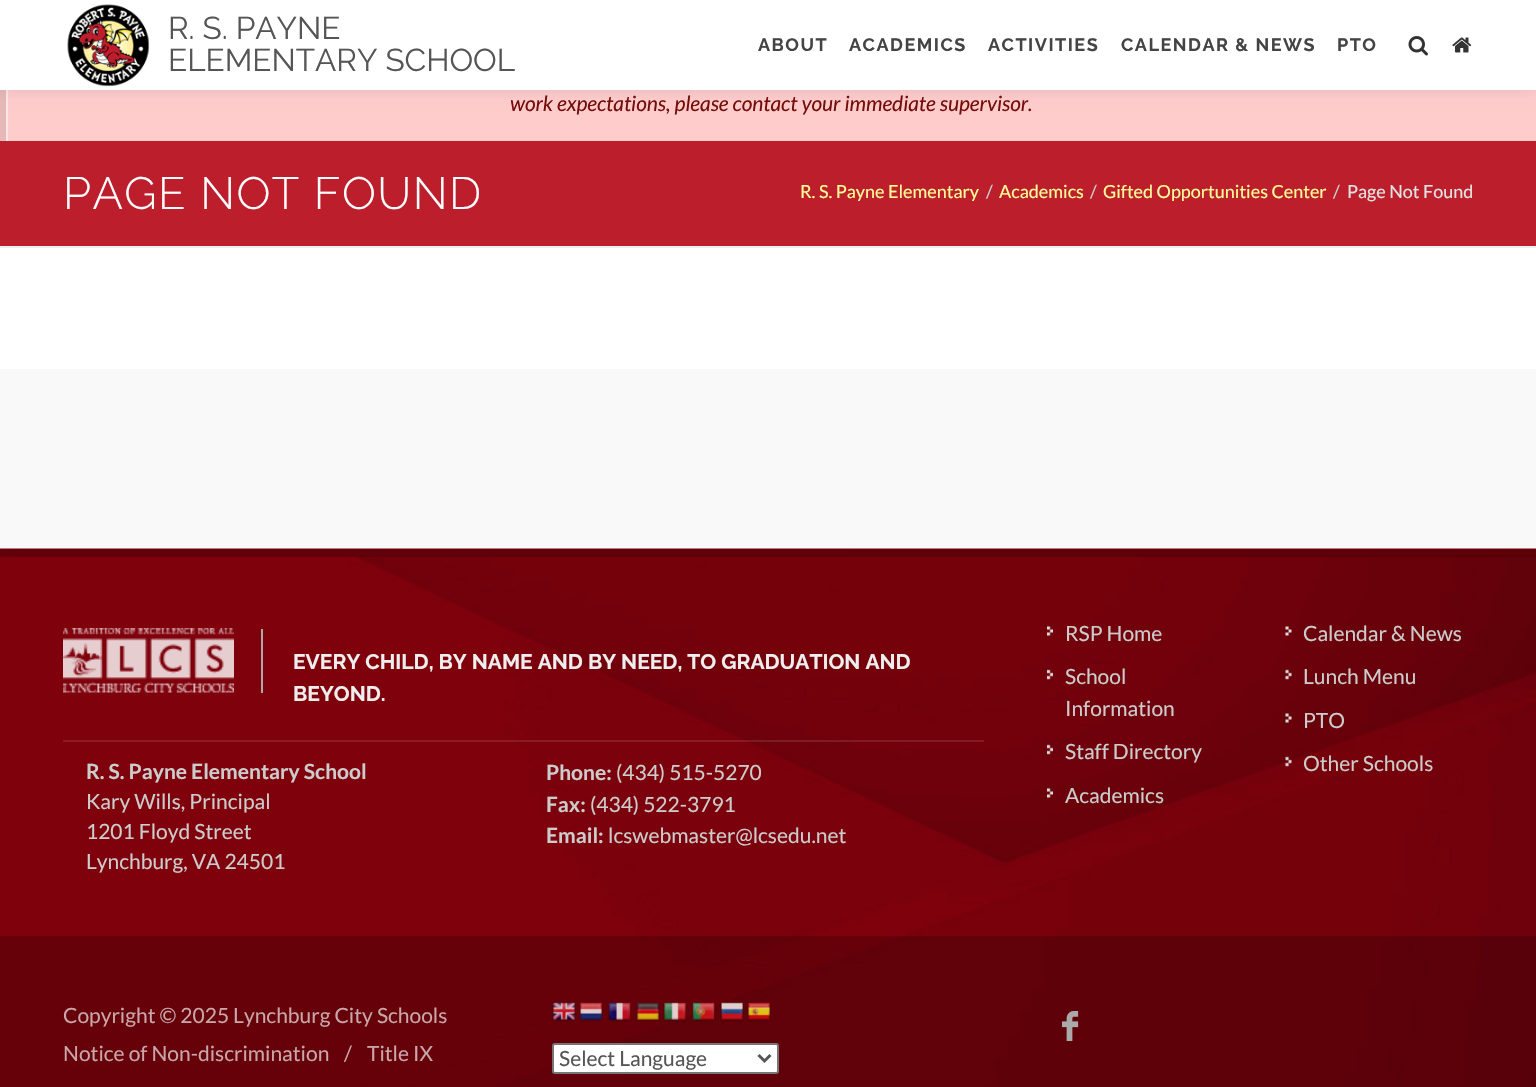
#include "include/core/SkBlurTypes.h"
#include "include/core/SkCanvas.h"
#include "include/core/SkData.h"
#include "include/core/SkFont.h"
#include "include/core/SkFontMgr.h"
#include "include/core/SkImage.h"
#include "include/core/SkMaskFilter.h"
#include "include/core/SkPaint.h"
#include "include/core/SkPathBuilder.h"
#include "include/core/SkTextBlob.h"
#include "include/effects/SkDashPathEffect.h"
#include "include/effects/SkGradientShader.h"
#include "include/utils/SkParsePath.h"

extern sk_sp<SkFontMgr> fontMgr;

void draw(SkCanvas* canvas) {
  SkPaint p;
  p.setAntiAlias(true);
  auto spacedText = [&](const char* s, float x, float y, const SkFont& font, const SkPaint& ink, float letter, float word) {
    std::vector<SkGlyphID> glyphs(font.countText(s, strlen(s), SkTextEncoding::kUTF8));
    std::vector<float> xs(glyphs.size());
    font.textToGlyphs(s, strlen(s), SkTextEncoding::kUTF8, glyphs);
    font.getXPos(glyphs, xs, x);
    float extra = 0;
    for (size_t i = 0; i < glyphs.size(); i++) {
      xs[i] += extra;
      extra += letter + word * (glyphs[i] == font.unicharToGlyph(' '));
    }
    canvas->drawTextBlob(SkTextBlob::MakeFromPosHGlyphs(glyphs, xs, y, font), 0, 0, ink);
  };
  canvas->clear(SK_ColorWHITE);
  p.setColor(SkColorSetRGB(255, 204, 204));
  canvas->drawRect(SkRect::MakeLTRB(8, 90, 1536, 141), p);
  p.setColor(SkColorSetRGB(230, 184, 184));
  canvas->drawRect(SkRect::MakeLTRB(0, 90, 6, 141), p);
  p.setColor(SkColorSetRGB(255, 230, 230));
  canvas->drawRect(SkRect::MakeLTRB(6, 90, 8, 141), p);
  p.setColor(SkColorSetARGB(26, 0, 0, 0));
  p.setMaskFilter(SkMaskFilter::MakeBlur(kNormal_SkBlurStyle, 7.5f));
  canvas->drawRect(SkRect::MakeLTRB(0, 0, 1536, 90), p);
  p.setMaskFilter(nullptr);
  p.setColor(SK_ColorWHITE);
  canvas->drawRect(SkRect::MakeLTRB(0, 0, 1536, 90), p);
  canvas->drawImageRect(SkImages::DeferredFromEncodedData(SkData::MakeFromFileName("images/1.png")), SkRect::MakeLTRB(67, 4, 150, 87), SkSamplingOptions());
  canvas->drawImageRect(SkImages::DeferredFromEncodedData(SkData::MakeFromFileName("images/2.png")), SkRect::MakeLTRB(1408, 36, 1428, 56), SkSamplingOptions());
  canvas->drawImageRect(SkImages::DeferredFromEncodedData(SkData::MakeFromFileName("images/3.png")), SkRect::MakeLTRB(1452, 37, 1472, 53), SkSamplingOptions());
  p.setColor(SkColorSetRGB(189, 30, 44));
  canvas->drawRect(SkRect::MakeLTRB(0, 141, 1536, 246), p);
  p.setColor(SkColorSetRGB(238, 238, 238));
  canvas->drawRect(SkRect::MakeLTRB(0, 246, 1536, 248), p);
  p.setColor(SkColorSetRGB(249, 249, 249));
  canvas->drawRect(SkRect::MakeLTRB(0, 369, 1536, 549), p);
  canvas->drawImageRect(SkImages::DeferredFromEncodedData(SkData::MakeFromFileName("images/4.png")), SkRect::MakeLTRB(0, 548, 1536, 1087), SkSamplingOptions());
  p.setColor(SkColorSetARGB(51, 0, 0, 0));
  canvas->drawRect(SkRect::MakeLTRB(0, 549, 1536, 557), p);
  p.setColor(SkColorSetRGB(170, 170, 170));
  canvas->drawRect(SkRect::MakeLTRB(261, 629, 263, 693), p);
  canvas->drawImageRect(SkImages::DeferredFromEncodedData(SkData::MakeFromFileName("images/5.png")), SkRect::MakeLTRB(63, 628, 234, 693), SkSamplingOptions());
  p.setColor(SkColorSetARGB(26, 255, 255, 255));
  canvas->drawRect(SkRect::MakeLTRB(63, 740, 984, 742), p);
  canvas->drawImageRect(SkImages::DeferredFromEncodedData(SkData::MakeFromFileName("images/6.png")), SkRect::MakeLTRB(1047, 626, 1053, 636), SkSamplingOptions());
  canvas->drawImageRect(SkImages::DeferredFromEncodedData(SkData::MakeFromFileName("images/7.png")), SkRect::MakeLTRB(1047, 669, 1053, 680), SkSamplingOptions());
  canvas->drawImageRect(SkImages::DeferredFromEncodedData(SkData::MakeFromFileName("images/8.png")), SkRect::MakeLTRB(1047, 744, 1053, 755), SkSamplingOptions());
  canvas->drawImageRect(SkImages::DeferredFromEncodedData(SkData::MakeFromFileName("images/9.png")), SkRect::MakeLTRB(1047, 788, 1053, 798), SkSamplingOptions());
  canvas->drawImageRect(SkImages::DeferredFromEncodedData(SkData::MakeFromFileName("images/10.png")), SkRect::MakeLTRB(1285, 626, 1292, 636), SkSamplingOptions());
  canvas->drawImageRect(SkImages::DeferredFromEncodedData(SkData::MakeFromFileName("images/11.png")), SkRect::MakeLTRB(1285, 669, 1292, 680), SkSamplingOptions());
  canvas->drawImageRect(SkImages::DeferredFromEncodedData(SkData::MakeFromFileName("images/12.png")), SkRect::MakeLTRB(1285, 713, 1292, 723), SkSamplingOptions());
  canvas->drawImageRect(SkImages::DeferredFromEncodedData(SkData::MakeFromFileName("images/13.png")), SkRect::MakeLTRB(1285, 756, 1292, 767), SkSamplingOptions());
  p.setColor(SkColorSetARGB(51, 0, 0, 0));
  canvas->drawRect(SkRect::MakeLTRB(0, 936, 1536, 1087), p);
  canvas->drawImageRect(SkImages::DeferredFromEncodedData(SkData::MakeFromFileName("images/14.png")), SkRect::MakeLTRB(1062, 1011, 1079, 1041), SkSamplingOptions());
  canvas->drawImageRect(SkImages::DeferredFromEncodedData(SkData::MakeFromFileName("images/15.png")), SkRect::MakeLTRB(552, 1002, 576, 1022), SkSamplingOptions());
  canvas->drawImageRect(SkImages::DeferredFromEncodedData(SkData::MakeFromFileName("images/16.png")), SkRect::MakeLTRB(579, 1002, 603, 1022), SkSamplingOptions());
  canvas->drawImageRect(SkImages::DeferredFromEncodedData(SkData::MakeFromFileName("images/17.png")), SkRect::MakeLTRB(607, 1002, 632, 1022), SkSamplingOptions());
  canvas->drawImageRect(SkImages::DeferredFromEncodedData(SkData::MakeFromFileName("images/18.png")), SkRect::MakeLTRB(636, 1002, 660, 1022), SkSamplingOptions());
  canvas->drawImageRect(SkImages::DeferredFromEncodedData(SkData::MakeFromFileName("images/19.png")), SkRect::MakeLTRB(663, 1002, 687, 1022), SkSamplingOptions());
  canvas->drawImageRect(SkImages::DeferredFromEncodedData(SkData::MakeFromFileName("images/20.png")), SkRect::MakeLTRB(691, 1002, 716, 1022), SkSamplingOptions());
  canvas->drawImageRect(SkImages::DeferredFromEncodedData(SkData::MakeFromFileName("images/21.png")), SkRect::MakeLTRB(720, 1002, 744, 1022), SkSamplingOptions());
  canvas->drawImageRect(SkImages::DeferredFromEncodedData(SkData::MakeFromFileName("images/22.png")), SkRect::MakeLTRB(747, 1002, 771, 1022), SkSamplingOptions());
  p.setColor(SK_ColorWHITE);
  canvas->drawRoundRect(SkRect::MakeLTRB(553, 1044, 778, 1073), 2, 2, p);
  p.setStyle(SkPaint::kStroke_Style);
  p.setStrokeWidth(2);
  p.setColor(SkColorSetRGB(118, 118, 118));
  canvas->drawRoundRect(SkRect::MakeLTRB(553, 1044, 778, 1073), 2, 2, p);
  p.setStrokeWidth(3);
  p.setColor(SkColorSetRGB(85, 85, 85));
  canvas->drawPath(SkPathBuilder().moveTo(758.5f, 1055).lineTo(764.5f, 1061).lineTo(770.5f, 1055).detach(), p);
  SkFont font1(fontMgr->matchFamilyStyle("Raleway", SkFontStyle::Normal()), 31.5f);
  font1.setSubpixel(true);
  p.setStyle(SkPaint::kFill_Style);
  canvas->drawString("R. S. PAYNE", 168, 39, font1, p);
  canvas->drawString("ELEMENTARY SCHOOL", 168, 71, font1, p);
  SkFont font2(fontMgr->matchFamilyStyle("Raleway", SkFontStyle::Bold()), 18);
  font2.setSubpixel(true);
  p.setColor(SkColorSetRGB(68, 68, 68));
  spacedText("ABOUT", 758, 51, font2, p, 1.5f, 0);
  spacedText("ACADEMICS", 849, 51, font2, p, 1.5f, 0);
  spacedText("ACTIVITIES", 988, 51, font2, p, 1.5f, 0);
  spacedText("CALENDAR & NEWS", 1121, 51, font2, p, 1.5f, 0);
  spacedText("PTO", 1337, 51, font2, p, 1.5f, 0);
  SkFont font3(fontMgr->matchFamilyStyle("Lato", SkFontStyle::Italic()), 21);
  font3.setSubpixel(true);
  p.setColor(SkColorSetRGB(116, 13, 10));
  canvas->drawString("work expectations, please contact your immediate supervisor.", 510, 111, font3, p);
  SkFont font4(fontMgr->matchFamilyStyle("Raleway", SkFontStyle(300, SkFontStyle::kNormal_Width, SkFontStyle::kUpright_Slant)), 45);
  font4.setSubpixel(true);
  p.setColor(SK_ColorWHITE);
  spacedText("PAGE NOT FOUND", 63, 209, font4, p, 1.5f, 0);
  SkFont font5(fontMgr->matchFamilyStyle("Lato", SkFontStyle::Normal()), 18);
  font5.setSubpixel(true);
  p.setColor(SkColorSetRGB(255, 255, 153));
  canvas->drawString("R. S. Payne Elementary", 800, 198, font5, p);
  p.setColor(SkColorSetRGB(204, 204, 204));
  canvas->drawString("/", 986, 198, font5, p);
  p.setColor(SkColorSetRGB(255, 255, 153));
  canvas->drawString("Academics", 999, 198, font5, p);
  p.setColor(SkColorSetRGB(204, 204, 204));
  canvas->drawString("/", 1090, 198, font5, p);
  p.setColor(SkColorSetRGB(255, 255, 153));
  canvas->drawString("Gifted Opportunities Center", 1103, 198, font5, p);
  p.setColor(SkColorSetRGB(204, 204, 204));
  canvas->drawString("/", 1333, 198, font5, p);
  p.setColor(SkColorSetRGB(227, 227, 227));
  canvas->drawString("Page Not Found", 1347, 198, font5, p);
  SkFont font6(fontMgr->matchFamilyStyle("Raleway", SkFontStyle::Bold()), 21);
  font6.setSubpixel(true);
  p.setColor(SkColorSetRGB(238, 238, 238));
  canvas->drawString("EVERY CHILD, BY NAME AND BY NEED, TO GRADUATION AND", 293, 669, font6, p);
  canvas->drawString("BEYOND.", 293, 701, font6, p);
  SkFont font7(fontMgr->matchFamilyStyle("Lato", SkFontStyle::Bold()), 21);
  font7.setSubpixel(true);
  p.setColor(SkColorSetRGB(204, 204, 204));
  canvas->drawString("R. S. Payne Elementary School", 86, 779, font7, p);
  SkFont font8(fontMgr->matchFamilyStyle("Lato", SkFontStyle::Normal()), 21);
  font8.setSubpixel(true);
  canvas->drawString("Kary Wills, Principal", 86, 809, font8, p);
  canvas->drawString("1201 Floyd Street", 86, 839, font8, p);
  canvas->drawString("Lynchburg, VA 24501", 86, 869, font8, p);
  canvas->drawString("Phone:", 546, 780, font7, p);
  canvas->drawString("(434) 515-5270", 616, 780, font8, p);
  canvas->drawString("Fax:", 546, 812, font7, p);
  canvas->drawString("(434) 522-3791", 590, 812, font8, p);
  canvas->drawString("Email:", 546, 843, font7, p);
  canvas->drawString("lcswebmaster@lcsedu.net", 608, 843, font8, p);
  canvas->drawString("RSP Home", 1065, 641, font8, p);
  canvas->drawString("School", 1065, 684, font8, p);
  canvas->drawString("Information", 1065, 716, font8, p);
  canvas->drawString("Staff Directory", 1065, 759, font8, p);
  canvas->drawString("Academics", 1065, 803, font8, p);
  canvas->drawString("Calendar & News", 1303, 641, font8, p);
  canvas->drawString("Lunch Menu", 1303, 684, font8, p);
  canvas->drawString("PTO", 1303, 728, font8, p);
  canvas->drawString("Other Schools", 1303, 771, font8, p);
  p.setColor(SkColorSetRGB(201, 166, 169));
  canvas->drawString("Copyright © 2025 Lynchburg City Schools", 63, 1023, font8, p);
  canvas->drawString("Notice of Non-discrimination", 63, 1061, font8, p);
  canvas->drawString("/", 344, 1061, font8, p);
  canvas->drawString("Title IX", 367, 1061, font8, p);
  p.setColor(SkColorSetRGB(85, 85, 85));
  canvas->drawString("Select Language", 559, 1066, font8, p);
}
